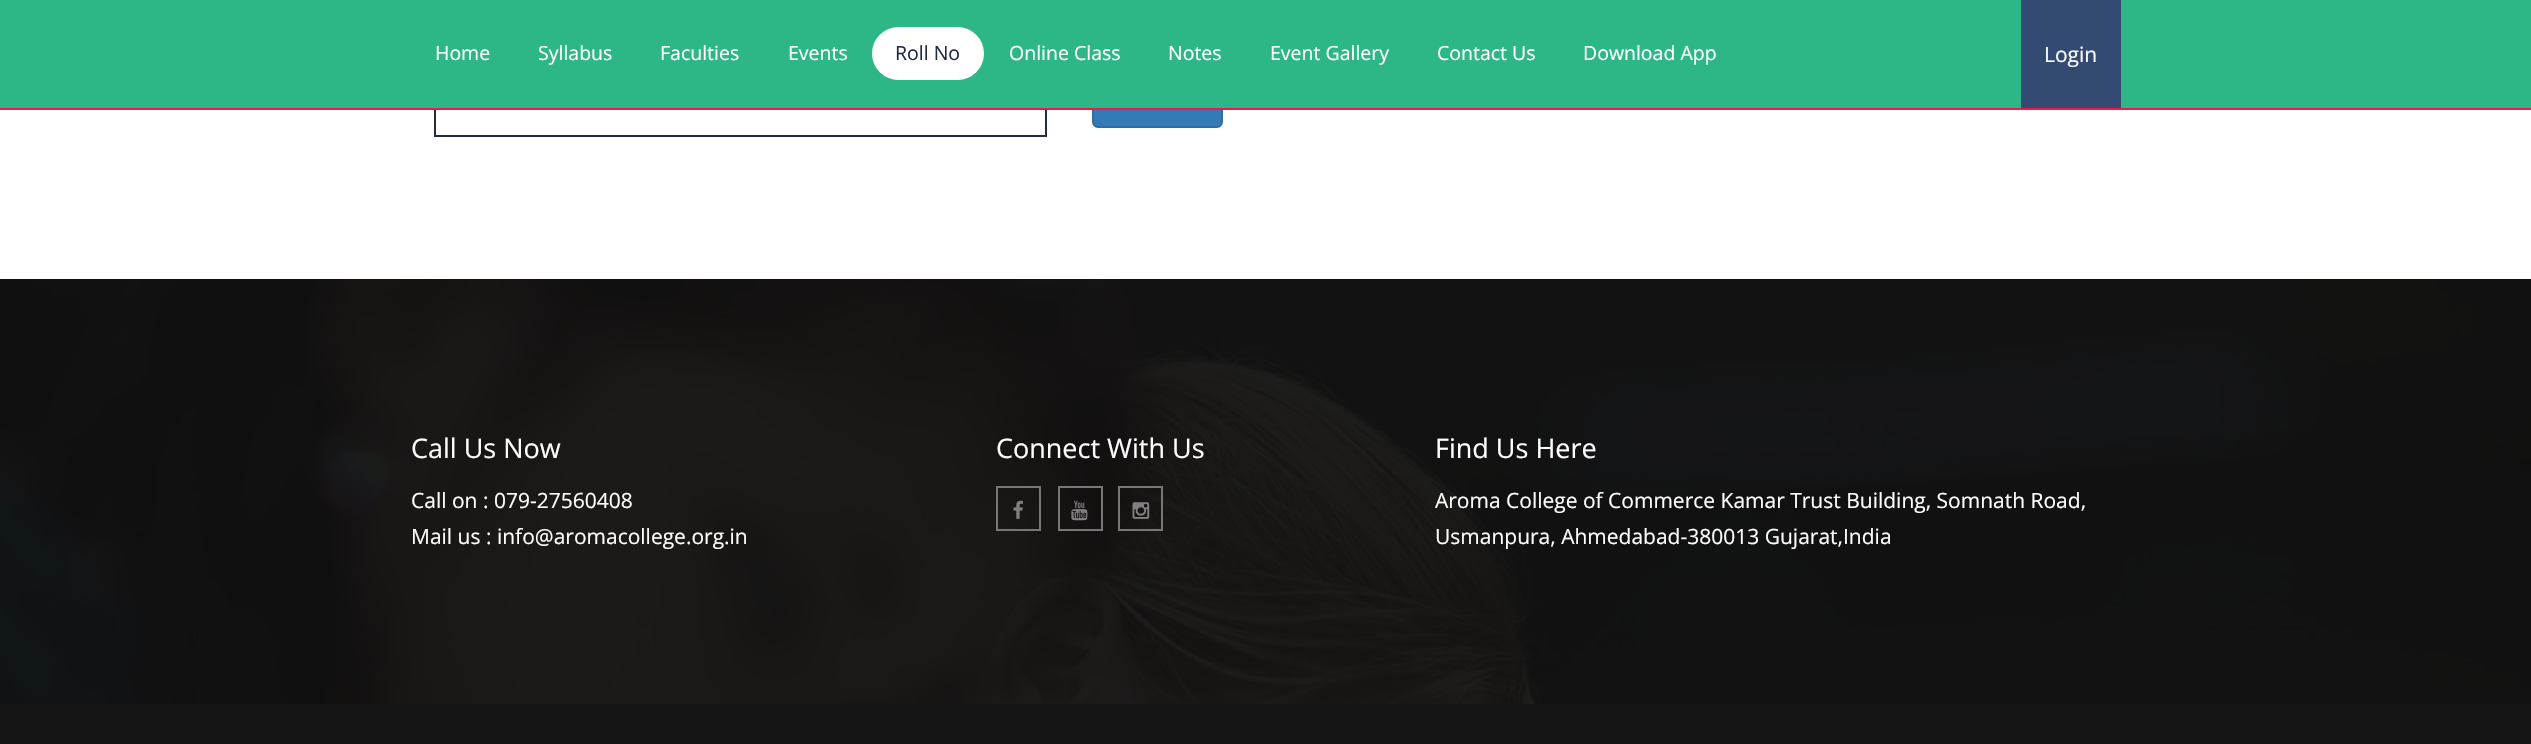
#include "include/core/SkBlurTypes.h"
#include "include/core/SkCanvas.h"
#include "include/core/SkData.h"
#include "include/core/SkFont.h"
#include "include/core/SkFontMgr.h"
#include "include/core/SkImage.h"
#include "include/core/SkMaskFilter.h"
#include "include/core/SkPaint.h"
#include "include/core/SkPathBuilder.h"
#include "include/core/SkTextBlob.h"
#include "include/effects/SkDashPathEffect.h"
#include "include/effects/SkGradientShader.h"
#include "include/utils/SkParsePath.h"

extern sk_sp<SkFontMgr> fontMgr;

void draw(SkCanvas* canvas) {
  SkPaint p;
  p.setAntiAlias(true);
  canvas->clear(SK_ColorWHITE);
  p.setStyle(SkPaint::kStroke_Style);
  p.setStrokeWidth(2);
  p.setColor(SkColorSetRGB(32, 44, 69));
  canvas->drawRect(SkRect::MakeLTRB(435, 70, 1046, 136), p);
  p.setStyle(SkPaint::kFill_Style);
  p.setColor(SkColorSetRGB(51, 122, 183));
  canvas->drawRoundRect(SkRect::MakeLTRB(1093, 75, 1222, 127), 5, 5, p);
  p.setStyle(SkPaint::kStroke_Style);
  p.setColor(SkColorSetRGB(46, 109, 164));
  canvas->drawRoundRect(SkRect::MakeLTRB(1093, 75, 1222, 127), 5, 5, p);
  p.setStyle(SkPaint::kFill_Style);
  p.setColor(SkColorSetRGB(46, 183, 134));
  canvas->drawRect(SkRect::MakeLTRB(0, 0, 2531, 108), p);
  p.setColor(SkColorSetRGB(242, 24, 79));
  canvas->drawRect(SkRect::MakeLTRB(0, 108, 2531, 110), p);
  p.setColor(SK_ColorWHITE);
  canvas->drawRoundRect(SkRect::MakeLTRB(872, 27, 984, 80), 26.5f, 26.5f, p);
  p.setColor(SkColorSetRGB(51, 74, 115));
  canvas->drawRect(SkRect::MakeLTRB(2021, 0, 2121, 108), p);
  canvas->drawImageRect(SkImages::DeferredFromEncodedData(SkData::MakeFromFileName("images/1.png")), SkRect::MakeLTRB(0, 279, 2531, 704), SkSamplingOptions());
  p.setStyle(SkPaint::kStroke_Style);
  p.setColor(SkColorSetRGB(119, 119, 119));
  canvas->drawRect(SkRect::MakeLTRB(997, 487, 1040, 530), p);
  canvas->drawImageRect(SkImages::DeferredFromEncodedData(SkData::MakeFromFileName("images/2.png")), SkRect::MakeLTRB(1013, 500, 1023, 519), SkSamplingOptions());
  canvas->drawRect(SkRect::MakeLTRB(1059, 487, 1102, 530), p);
  canvas->drawImageRect(SkImages::DeferredFromEncodedData(SkData::MakeFromFileName("images/3.png")), SkRect::MakeLTRB(1071, 500, 1088, 521), SkSamplingOptions());
  canvas->drawRect(SkRect::MakeLTRB(1119, 487, 1162, 530), p);
  canvas->drawImageRect(SkImages::DeferredFromEncodedData(SkData::MakeFromFileName("images/4.png")), SkRect::MakeLTRB(1132, 502, 1150, 519), SkSamplingOptions());
  p.setStyle(SkPaint::kFill_Style);
  p.setColor(SkColorSetRGB(20, 20, 20));
  canvas->drawRect(SkRect::MakeLTRB(0, 704, 2531, 744), p);
  SkFont font1(fontMgr->matchFamilyStyle("Open Sans", SkFontStyle::Normal()), 19.5f);
  font1.setSubpixel(true);
  p.setColor(SK_ColorWHITE);
  canvas->drawString("Home", 435, 60, font1, p);
  canvas->drawString("Syllabus", 538, 60, font1, p);
  canvas->drawString("Faculties", 660, 60, font1, p);
  canvas->drawString("Events", 788, 60, font1, p);
  p.setColor(SkColorSetRGB(32, 44, 69));
  canvas->drawString("Roll No", 895, 60, font1, p);
  p.setColor(SK_ColorWHITE);
  canvas->drawString("Online Class", 1009, 60, font1, p);
  canvas->drawString("Notes", 1168, 60, font1, p);
  canvas->drawString("Event Gallery", 1270, 60, font1, p);
  canvas->drawString("Contact Us", 1437, 60, font1, p);
  canvas->drawString("Download App", 1583, 60, font1, p);
  SkFont font2(fontMgr->matchFamilyStyle("Open Sans", SkFontStyle::Normal()), 21);
  font2.setSubpixel(true);
  canvas->drawString("Login", 2044, 62, font2, p);
  SkFont font3(fontMgr->matchFamilyStyle("Open Sans", SkFontStyle::Normal()), 27);
  font3.setSubpixel(true);
  canvas->drawString("Call Us Now", 411, 458, font3, p);
  canvas->drawString("Call on : 079-27560408", 411, 508, font2, p);
  canvas->drawString("Mail us : info@aromacollege.org.in", 411, 544, font2, p);
  canvas->drawString("Connect With Us", 996, 458, font3, p);
  canvas->drawString("Find Us Here", 1435, 458, font3, p);
  canvas->drawString("Aroma College of Commerce Kamar Trust Building, Somnath Road,", 1435, 508, font2, p);
  canvas->drawString("Usmanpura, Ahmedabad-380013 Gujarat,India", 1435, 544, font2, p);
}
